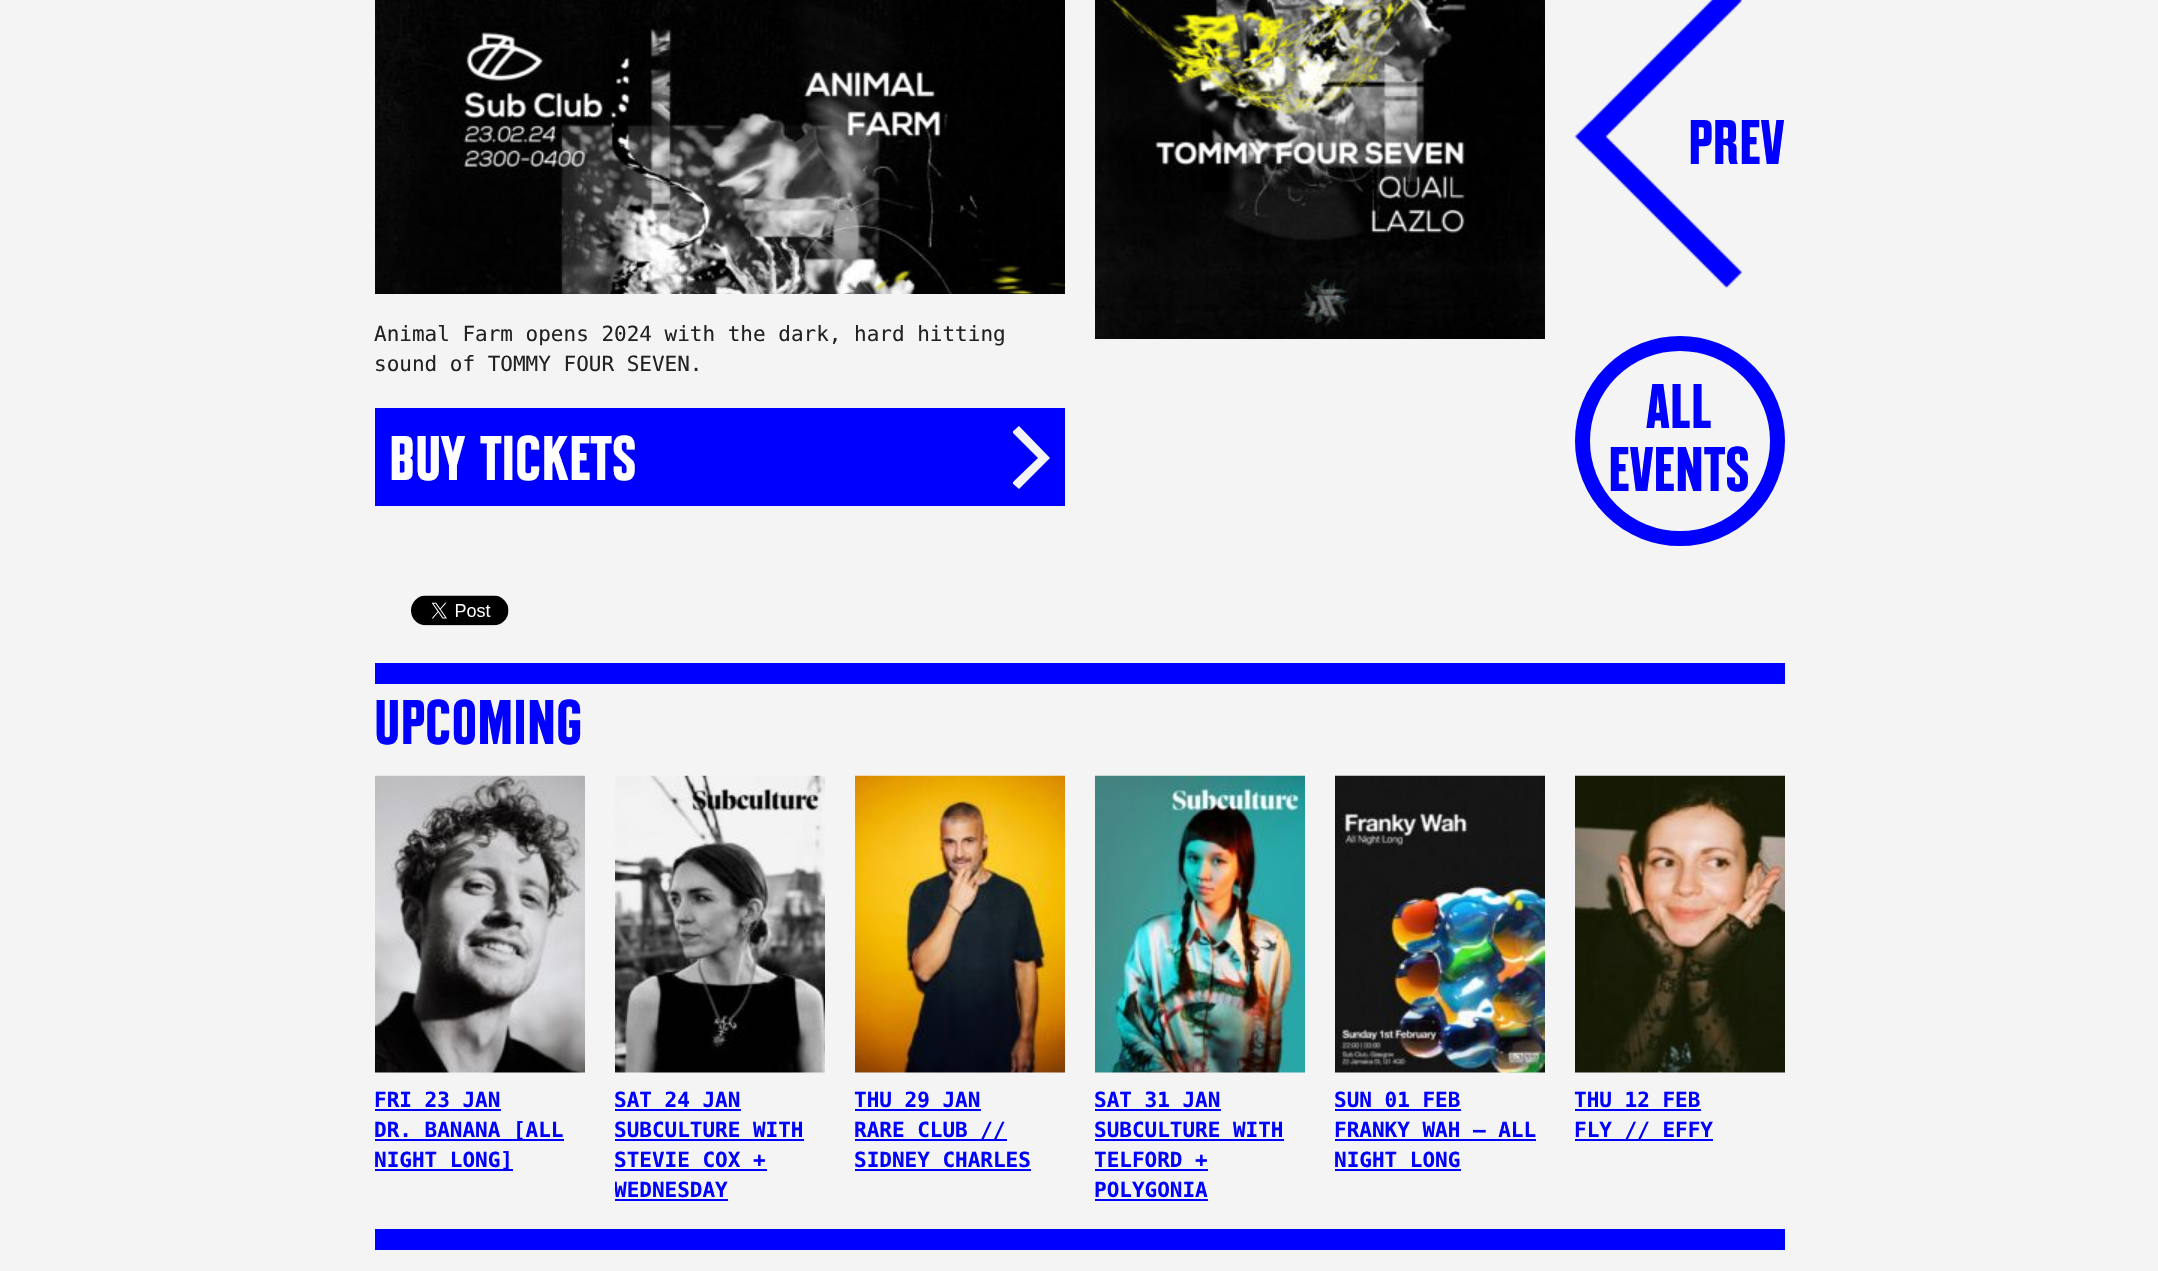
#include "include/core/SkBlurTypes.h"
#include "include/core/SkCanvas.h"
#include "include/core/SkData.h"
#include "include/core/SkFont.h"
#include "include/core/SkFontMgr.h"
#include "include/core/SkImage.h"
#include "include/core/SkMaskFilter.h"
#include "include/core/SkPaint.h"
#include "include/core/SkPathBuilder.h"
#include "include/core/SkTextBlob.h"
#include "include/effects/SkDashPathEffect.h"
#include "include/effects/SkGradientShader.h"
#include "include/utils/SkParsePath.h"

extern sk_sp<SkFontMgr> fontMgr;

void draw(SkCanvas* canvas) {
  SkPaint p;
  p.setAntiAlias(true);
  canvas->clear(SkColorSetRGB(244, 244, 244));
  canvas->drawImageRect(SkImages::DeferredFromEncodedData(SkData::MakeFromFileName("images/1.png")), SkRect::MakeLTRB(375, 0, 1065, 294), SkSamplingOptions());
  p.setColor(SkColorSetRGB(0, 0, 254));
  canvas->drawRect(SkRect::MakeLTRB(375, 408, 1065, 506), p);
  canvas->save();
  canvas->clipRect(SkRect::MakeLTRB(1013, 426, 1050, 489));
  p.setColor(SkColorSetRGB(244, 244, 244));
  canvas->drawPath(SkPathBuilder().moveTo(1050, 458).lineTo(1019, 426).lineTo(1012, 432).lineTo(1038, 458).lineTo(1012, 483).lineTo(1019, 489).close().detach(), p);
  canvas->restore();
  canvas->drawImageRect(SkImages::DeferredFromEncodedData(SkData::MakeFromFileName("images/2.png")), SkRect::MakeLTRB(411, 595, 509, 626), SkSamplingOptions());
  canvas->drawImageRect(SkImages::DeferredFromEncodedData(SkData::MakeFromFileName("images/3.png")), SkRect::MakeLTRB(1095, 0, 1545, 339), SkSamplingOptions());
  p.setStyle(SkPaint::kStroke_Style);
  p.setStrokeWidth(15);
  p.setColor(SkColorSetRGB(0, 0, 254));
  canvas->drawCircle(1680, 441, 97.5f, p);
  p.setStyle(SkPaint::kFill_Style);
  canvas->drawRect(SkRect::MakeLTRB(375, 663, 1785, 684), p);
  canvas->drawImageRect(SkImages::DeferredFromEncodedData(SkData::MakeFromFileName("images/5.png")), SkRect::MakeLTRB(375, 775, 585, 1073), SkSamplingOptions());
  canvas->drawRect(SkRect::MakeLTRB(375, 1109, 501, 1111), p);
  canvas->drawRect(SkRect::MakeLTRB(375, 1139, 564, 1141), p);
  canvas->drawRect(SkRect::MakeLTRB(375, 1169, 513, 1171), p);
  canvas->drawImageRect(SkImages::DeferredFromEncodedData(SkData::MakeFromFileName("images/6.png")), SkRect::MakeLTRB(615, 775, 825, 1073), SkSamplingOptions());
  canvas->drawRect(SkRect::MakeLTRB(615, 1109, 741, 1111), p);
  canvas->drawRect(SkRect::MakeLTRB(615, 1139, 804, 1141), p);
  canvas->drawRect(SkRect::MakeLTRB(615, 1169, 767, 1171), p);
  canvas->drawRect(SkRect::MakeLTRB(615, 1199, 728, 1201), p);
  canvas->drawImageRect(SkImages::DeferredFromEncodedData(SkData::MakeFromFileName("images/7.png")), SkRect::MakeLTRB(855, 775, 1065, 1073), SkSamplingOptions());
  canvas->drawRect(SkRect::MakeLTRB(855, 1109, 981, 1111), p);
  canvas->drawRect(SkRect::MakeLTRB(855, 1139, 1007, 1141), p);
  canvas->drawRect(SkRect::MakeLTRB(855, 1169, 1031, 1171), p);
  canvas->drawImageRect(SkImages::DeferredFromEncodedData(SkData::MakeFromFileName("images/8.png")), SkRect::MakeLTRB(1095, 775, 1305, 1073), SkSamplingOptions());
  canvas->drawRect(SkRect::MakeLTRB(1095, 1109, 1221, 1111), p);
  canvas->drawRect(SkRect::MakeLTRB(1095, 1139, 1284, 1141), p);
  canvas->drawRect(SkRect::MakeLTRB(1095, 1169, 1208, 1171), p);
  canvas->drawRect(SkRect::MakeLTRB(1095, 1199, 1208, 1201), p);
  canvas->drawImageRect(SkImages::DeferredFromEncodedData(SkData::MakeFromFileName("images/9.png")), SkRect::MakeLTRB(1335, 775, 1545, 1073), SkSamplingOptions());
  canvas->drawRect(SkRect::MakeLTRB(1335, 1109, 1461, 1111), p);
  canvas->drawRect(SkRect::MakeLTRB(1335, 1139, 1536, 1141), p);
  canvas->drawRect(SkRect::MakeLTRB(1335, 1169, 1461, 1171), p);
  canvas->drawImageRect(SkImages::DeferredFromEncodedData(SkData::MakeFromFileName("images/10.png")), SkRect::MakeLTRB(1575, 775, 1785, 1073), SkSamplingOptions());
  canvas->drawRect(SkRect::MakeLTRB(1575, 1109, 1701, 1111), p);
  canvas->drawRect(SkRect::MakeLTRB(1575, 1139, 1713, 1141), p);
  canvas->drawRect(SkRect::MakeLTRB(375, 1229, 1785, 1250), p);
  SkFont font1(fontMgr->matchFamilyStyle("DejaVu Sans Mono", SkFontStyle::Normal()), 21);
  font1.setSubpixel(true);
  p.setColor(SkColorSetRGB(34, 34, 34));
  canvas->drawString("Animal Farm opens 2024 with the dark, hard hitting", 374, 341, font1, p);
  canvas->drawString("sound of TOMMY FOUR SEVEN.", 374, 371, font1, p);
  SkFont font2(fontMgr->matchFamilyStyle("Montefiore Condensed", SkFontStyle::Bold()), 63);
  font2.setSubpixel(true);
  p.setColor(SkColorSetRGB(254, 254, 254));
  canvas->drawString("BUY TICKETS", 389, 480, font2, p);
  p.setColor(SkColorSetRGB(0, 0, 254));
  canvas->drawString("PREV", 1688, 164, font2, p);
  canvas->drawImageRect(SkImages::DeferredFromEncodedData(SkData::MakeFromFileName("images/4.png")), SkRect::MakeLTRB(1575, 0, 1742, 288), SkSamplingOptions());
  canvas->drawString("ALL", 1646, 428, font2, p);
  canvas->drawString("EVENTS", 1608, 491, font2, p);
  canvas->drawString("UPCOMING", 374, 744, font2, p);
  SkFont font3(fontMgr->matchFamilyStyle("DejaVu Sans Mono", SkFontStyle::Bold()), 21);
  font3.setSubpixel(true);
  canvas->drawString("FRI 23 JAN", 374, 1107, font3, p);
  canvas->drawString("DR. BANANA [ALL", 374, 1137, font3, p);
  canvas->drawString("NIGHT LONG]", 374, 1167, font3, p);
  canvas->drawString("SAT 24 JAN", 614, 1107, font3, p);
  canvas->drawString("SUBCULTURE WITH", 614, 1137, font3, p);
  canvas->drawString("STEVIE COX +", 614, 1167, font3, p);
  canvas->save();
  canvas->clipRect(SkRect::MakeLTRB(615, 1073, 825, 1205));
  canvas->drawString("WEDNESDAY", 614, 1197, font3, p);
  canvas->restore();
  canvas->drawString("THU 29 JAN", 854, 1107, font3, p);
  canvas->drawString("RARE CLUB //", 854, 1137, font3, p);
  canvas->drawString("SIDNEY CHARLES", 854, 1167, font3, p);
  canvas->drawString("SAT 31 JAN", 1094, 1107, font3, p);
  canvas->drawString("SUBCULTURE WITH", 1094, 1137, font3, p);
  canvas->drawString("TELFORD +", 1094, 1167, font3, p);
  canvas->drawString("POLYGONIA", 1094, 1197, font3, p);
  canvas->drawString("SUN 01 FEB", 1334, 1107, font3, p);
  canvas->drawString("FRANKY WAH – ALL", 1334, 1137, font3, p);
  canvas->drawString("NIGHT LONG", 1334, 1167, font3, p);
  canvas->drawString("THU 12 FEB", 1574, 1107, font3, p);
  canvas->drawString("FLY // EFFY", 1574, 1137, font3, p);
}
